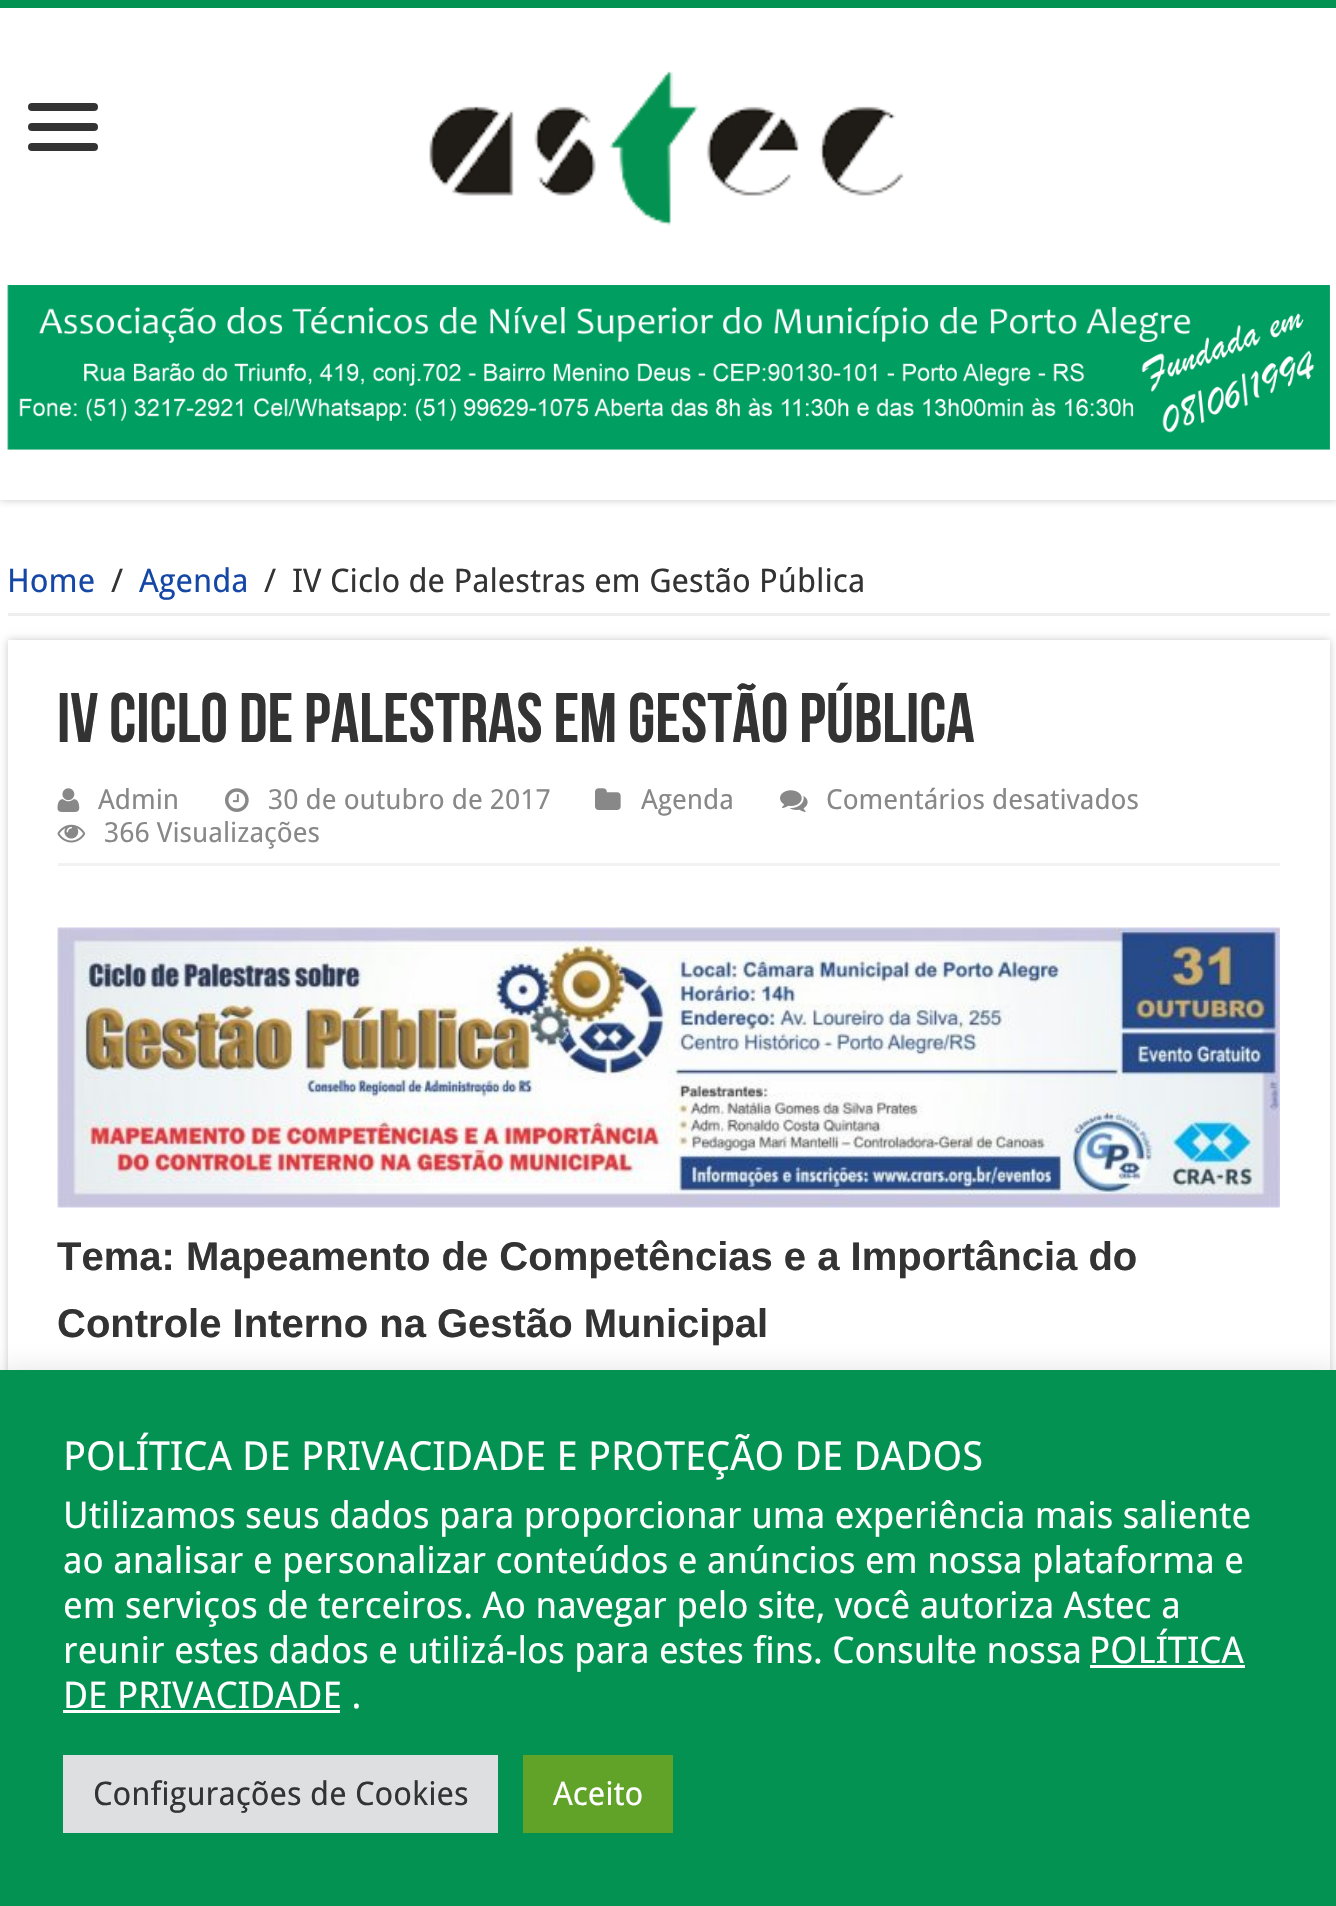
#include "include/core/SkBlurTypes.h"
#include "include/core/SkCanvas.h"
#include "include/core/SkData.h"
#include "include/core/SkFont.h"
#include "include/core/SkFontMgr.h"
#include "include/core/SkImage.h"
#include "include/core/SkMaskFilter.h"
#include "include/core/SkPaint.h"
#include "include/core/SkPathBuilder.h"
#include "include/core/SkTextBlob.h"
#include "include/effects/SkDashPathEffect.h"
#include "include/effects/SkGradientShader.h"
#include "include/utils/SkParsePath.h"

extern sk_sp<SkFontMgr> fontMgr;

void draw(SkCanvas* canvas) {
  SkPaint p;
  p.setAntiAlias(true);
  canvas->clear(SK_ColorWHITE);
  canvas->save();
  canvas->clipRect(SkRect::MakeLTRB(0, 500, 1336, 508));
  p.setColor(SkColorSetRGB(202, 202, 202));
  p.setMaskFilter(SkMaskFilter::MakeBlur(kNormal_SkBlurStyle, 4));
  canvas->drawRect(SkRect::MakeLTRB(0, 0, 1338, 500), p);
  p.setMaskFilter(nullptr);
  canvas->restore();
  p.setColor(SkColorSetRGB(3, 146, 82));
  canvas->drawRect(SkRect::MakeLTRB(0, 0, 1336, 8), p);
  p.setColor(SkColorSetRGB(51, 51, 51));
  canvas->drawRoundRect(SkRect::MakeLTRB(28, 103, 98, 111), 4, 4, p);
  canvas->drawRoundRect(SkRect::MakeLTRB(28, 123, 98, 131), 4, 4, p);
  canvas->drawRoundRect(SkRect::MakeLTRB(28, 143, 98, 151), 4, 4, p);
  canvas->drawImageRect(SkImages::DeferredFromEncodedData(SkData::MakeFromFileName("images/1.png")), SkRect::MakeLTRB(429, 71, 904, 226), SkSamplingOptions());
  canvas->drawImageRect(SkImages::DeferredFromEncodedData(SkData::MakeFromFileName("images/2.png")), SkRect::MakeLTRB(7, 285, 1330, 450), SkSamplingOptions());
  p.setColor(SkColorSetRGB(238, 238, 238));
  canvas->drawRect(SkRect::MakeLTRB(8, 613, 1330, 616), p);
  canvas->save();
  canvas->clipPath(SkPathBuilder(SkPathFillType::kEvenOdd).moveTo(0, 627).lineTo(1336, 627).lineTo(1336, 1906).lineTo(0, 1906).close().moveTo(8, 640).lineTo(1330, 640).lineTo(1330, 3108).lineTo(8, 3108).close().detach(), true);
  p.setColor(SkColorSetRGB(202, 202, 202));
  p.setMaskFilter(SkMaskFilter::MakeBlur(kNormal_SkBlurStyle, 4));
  canvas->drawRect(SkRect::MakeLTRB(8, 640, 1330, 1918), p);
  p.setMaskFilter(nullptr);
  canvas->restore();
  p.setColor(SkColorSetRGB(242, 242, 242));
  canvas->drawRect(SkRect::MakeLTRB(58, 863, 1280, 866), p);
  canvas->drawImageRect(SkImages::DeferredFromEncodedData(SkData::MakeFromFileName("images/3.png")), SkRect::MakeLTRB(57, 788, 80, 812), SkSamplingOptions());
  canvas->drawImageRect(SkImages::DeferredFromEncodedData(SkData::MakeFromFileName("images/4.png")), SkRect::MakeLTRB(225, 788, 249, 812), SkSamplingOptions());
  canvas->drawImageRect(SkImages::DeferredFromEncodedData(SkData::MakeFromFileName("images/5.png")), SkRect::MakeLTRB(595, 788, 621, 810), SkSamplingOptions());
  canvas->drawImageRect(SkImages::DeferredFromEncodedData(SkData::MakeFromFileName("images/6.png")), SkRect::MakeLTRB(780, 790, 808, 812), SkSamplingOptions());
  canvas->drawImageRect(SkImages::DeferredFromEncodedData(SkData::MakeFromFileName("images/7.png")), SkRect::MakeLTRB(57, 824, 86, 843), SkSamplingOptions());
  canvas->drawImageRect(SkImages::DeferredFromEncodedData(SkData::MakeFromFileName("images/8.png")), SkRect::MakeLTRB(57, 927, 1280, 1208), SkSamplingOptions());
  p.setColor(SkColorSetARGB(77, 172, 171, 171));
  p.setMaskFilter(SkMaskFilter::MakeBlur(kNormal_SkBlurStyle, 12.5f));
  canvas->drawRect(SkRect::MakeLTRB(0, 1368, 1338, 1905), p);
  p.setMaskFilter(nullptr);
  p.setColor(SkColorSetRGB(3, 146, 81));
  canvas->drawRect(SkRect::MakeLTRB(0, 1370, 1336, 1906), p);
  p.setColor(SK_ColorWHITE);
  canvas->drawRect(SkRect::MakeLTRB(1090, 1665, 1245, 1668), p);
  canvas->drawRect(SkRect::MakeLTRB(63, 1710, 340, 1713), p);
  p.setColor(SkColorSetRGB(222, 223, 224));
  canvas->drawRect(SkRect::MakeLTRB(63, 1755, 498, 1833), p);
  p.setColor(SkColorSetRGB(97, 162, 41));
  canvas->drawRect(SkRect::MakeLTRB(523, 1755, 673, 1833), p);
  SkFont font1(fontMgr->matchFamilyStyle("Droid Sans", SkFontStyle::Normal()), 32.5f);
  font1.setSubpixel(true);
  p.setColor(SkColorSetRGB(21, 72, 166));
  canvas->drawString("Home", 7, 592, font1, p);
  p.setColor(SkColorSetRGB(51, 51, 51));
  canvas->drawString("/", 111, 592, font1, p);
  p.setColor(SkColorSetRGB(21, 72, 166));
  canvas->drawString("Agenda", 139, 592, font1, p);
  p.setColor(SkColorSetRGB(51, 51, 51));
  canvas->drawString("/", 264, 592, font1, p);
  canvas->drawString("IV Ciclo de Palestras em Gestão Pública", 292, 592, font1, p);
  SkFont font2(fontMgr->matchFamilyStyle("Bebas Neue", SkFontStyle::Bold()), 70);
  font2.setSubpixel(true);
  canvas->drawString("IV Ciclo de Palestras em Gestão Pública", 57, 742, font2, p);
  SkFont font3(fontMgr->matchFamilyStyle("Droid Sans", SkFontStyle::Normal()), 27.6f);
  font3.setSubpixel(true);
  p.setColor(SkColorSetRGB(136, 136, 136));
  canvas->drawString("Admin", 98, 809, font3, p);
  canvas->drawString("30 de outubro de 2017", 268, 809, font3, p);
  canvas->drawString("Agenda", 641, 809, font3, p);
  canvas->drawString("Comentários desativados", 826, 809, font3, p);
  canvas->drawString("366 Visualizações", 104, 842, font3, p);
  SkFont font4(fontMgr->matchFamilyStyle("Liberation Sans", SkFontStyle::Bold()), 40);
  font4.setSubpixel(true);
  p.setColor(SkColorSetRGB(51, 51, 51));
  canvas->drawString("Tema: Mapeamento de Competências e a Importância do", 57, 1270, font4, p);
  canvas->drawString("Controle Interno na Gestão Municipal", 57, 1337, font4, p);
  SkFont font5(fontMgr->matchFamilyStyle("Droid Sans", SkFontStyle::Normal()), 40);
  font5.setSubpixel(true);
  p.setColor(SK_ColorWHITE);
  canvas->drawString("POLÍTICA DE PRIVACIDADE E PROTEÇÃO DE DADOS", 63, 1470, font5, p);
  SkFont font6(fontMgr->matchFamilyStyle("Droid Sans", SkFontStyle::Normal()), 36.7f);
  font6.setSubpixel(true);
  canvas->drawString("Utilizamos seus dados para proporcionar uma experiência mais saliente", 63, 1528, font6, p);
  canvas->drawString("ao analisar e personalizar conteúdos e anúncios em nossa plataforma e", 63, 1573, font6, p);
  canvas->drawString("em serviços de terceiros. Ao navegar pelo site, você autoriza Astec a", 63, 1618, font6, p);
  canvas->drawString("reunir estes dados e utilizá-los para estes fins. Consulte nossa", 63, 1663, font6, p);
  canvas->drawString("POLÍTICA", 1089, 1663, font6, p);
  canvas->drawString("DE PRIVACIDADE .", 63, 1708, font6, p);
  p.setColor(SkColorSetRGB(51, 51, 51));
  canvas->drawString("Configurações de Cookies", 93, 1805, font1, p);
  p.setColor(SK_ColorWHITE);
  canvas->drawString("Aceito", 553, 1805, font1, p);
}
